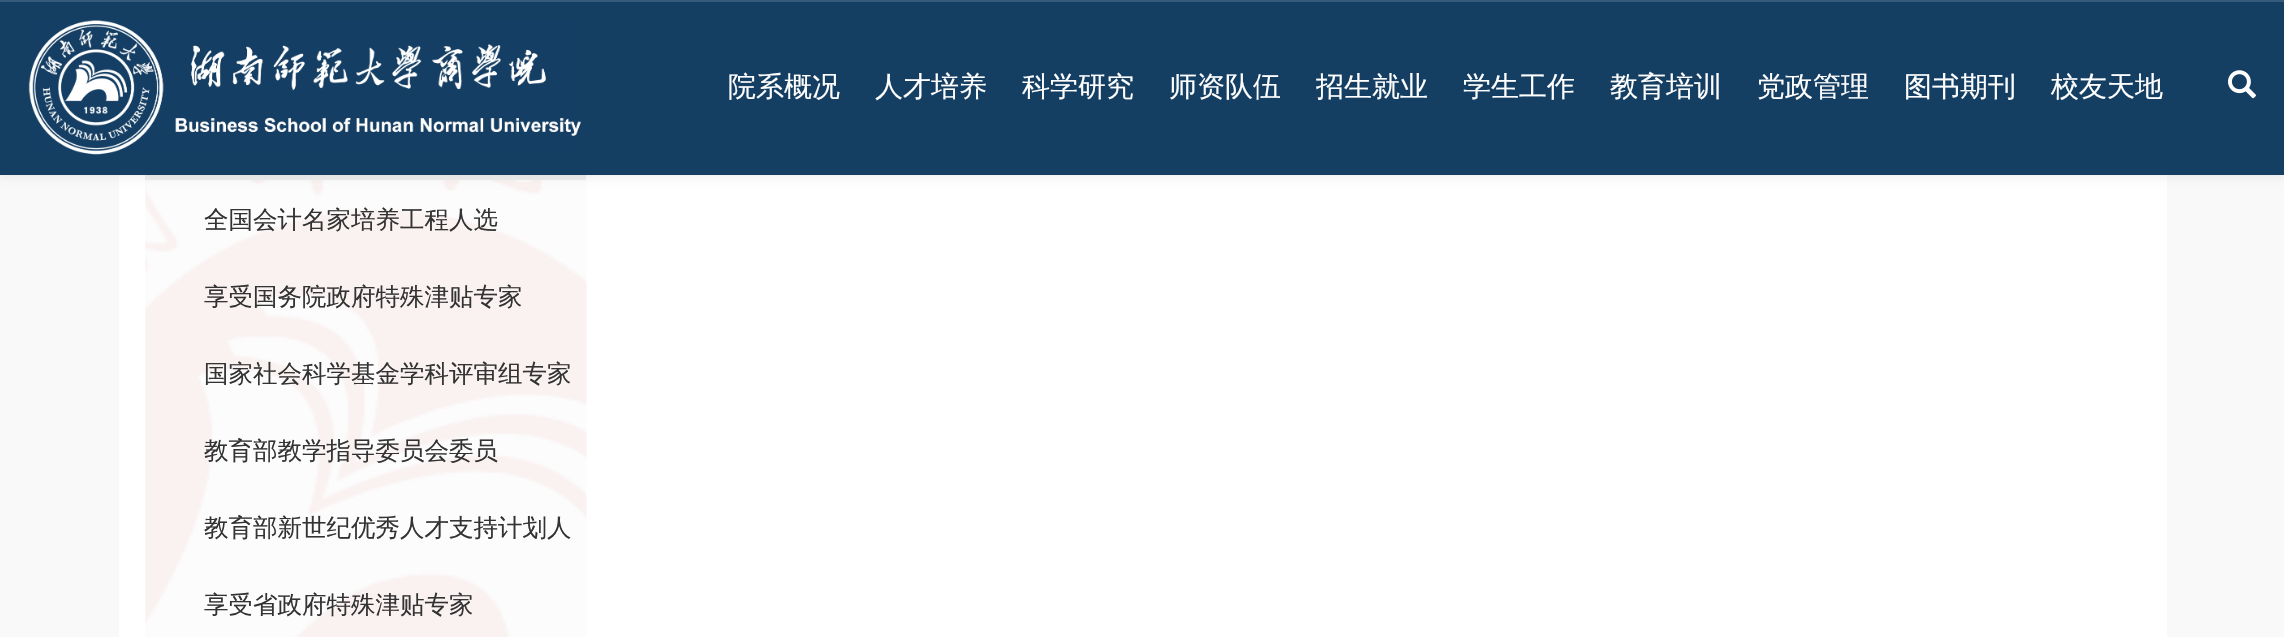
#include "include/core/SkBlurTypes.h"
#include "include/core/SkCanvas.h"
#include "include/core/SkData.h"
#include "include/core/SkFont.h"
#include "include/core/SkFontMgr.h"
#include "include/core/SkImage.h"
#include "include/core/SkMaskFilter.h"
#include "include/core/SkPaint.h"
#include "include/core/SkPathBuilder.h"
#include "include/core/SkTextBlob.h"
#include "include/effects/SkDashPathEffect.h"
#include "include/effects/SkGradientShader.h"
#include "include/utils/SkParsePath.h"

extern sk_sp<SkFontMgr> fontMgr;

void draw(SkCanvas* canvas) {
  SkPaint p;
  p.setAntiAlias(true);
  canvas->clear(SkColorSetRGB(249, 249, 249));
  p.setColor(SK_ColorWHITE);
  canvas->drawRect(SkRect::MakeLTRB(119, 175, 2167, 637), p);
  canvas->drawImageRect(SkImages::DeferredFromEncodedData(SkData::MakeFromFileName("images/3.png")), SkRect::MakeLTRB(145, 175, 587, 637), SkSamplingOptions());
  p.setColor(SkColorSetRGB(238, 238, 238));
  canvas->drawRect(SkRect::MakeLTRB(145, 175, 586, 180), p);
  p.setColor(SkColorSetARGB(128, 255, 255, 255));
  canvas->drawRect(SkRect::MakeLTRB(145, 180, 586, 257), p);
  p.setColor(SkColorSetARGB(18, 0, 0, 0));
  p.setMaskFilter(SkMaskFilter::MakeBlur(kNormal_SkBlurStyle, 4.5f));
  canvas->drawRect(SkRect::MakeLTRB(0, 2, 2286, 177), p);
  p.setMaskFilter(nullptr);
  p.setColor(SkColorSetRGB(20, 62, 98));
  canvas->drawRect(SkRect::MakeLTRB(0, 2, 2284, 175), p);
  p.setColor(SkColorSetRGB(55, 91, 122));
  canvas->drawRect(SkRect::MakeLTRB(0, 0, 2284, 2), p);
  canvas->drawImageRect(SkImages::DeferredFromEncodedData(SkData::MakeFromFileName("images/1.png")), SkRect::MakeLTRB(28, 20, 581, 155), SkSamplingOptions());
  canvas->drawImageRect(SkImages::DeferredFromEncodedData(SkData::MakeFromFileName("images/2.png")), SkRect::MakeLTRB(2228, 70, 2256, 99), SkSamplingOptions());
  p.setColor(SkColorSetARGB(128, 255, 255, 255));
  canvas->drawRect(SkRect::MakeLTRB(145, 257, 586, 334), p);
  canvas->drawRect(SkRect::MakeLTRB(145, 334, 586, 411), p);
  canvas->drawRect(SkRect::MakeLTRB(145, 411, 586, 488), p);
  canvas->drawRect(SkRect::MakeLTRB(145, 488, 586, 565), p);
  canvas->drawRect(SkRect::MakeLTRB(145, 565, 586, 637), p);
  SkFont font1(fontMgr->matchFamilyStyle("WenQuanYi Zen Hei", SkFontStyle(500, SkFontStyle::kNormal_Width, SkFontStyle::kUpright_Slant)), 28);
  font1.setSubpixel(true);
  p.setColor(SK_ColorWHITE);
  canvas->drawString("院系概况", 728, 96, font1, p);
  canvas->drawString("人才培养", 875, 96, font1, p);
  canvas->drawString("科学研究", 1022, 96, font1, p);
  canvas->drawString("师资队伍", 1169, 96, font1, p);
  canvas->drawString("招生就业", 1316, 96, font1, p);
  canvas->drawString("学生工作", 1463, 96, font1, p);
  canvas->drawString("教育培训", 1610, 96, font1, p);
  canvas->drawString("党政管理", 1757, 96, font1, p);
  canvas->drawString("图书期刊", 1904, 96, font1, p);
  canvas->drawString("校友天地", 2051, 96, font1, p);
  SkFont font2(fontMgr->matchFamilyStyle("WenQuanYi Zen Hei", SkFontStyle(500, SkFontStyle::kNormal_Width, SkFontStyle::kUpright_Slant)), 24.5f);
  font2.setSubpixel(true);
  p.setColor(SkColorSetRGB(51, 51, 51));
  canvas->drawString("全国会计名家培养工程人选", 204, 228, font2, p);
  canvas->drawString("享受国务院政府特殊津贴专家", 204, 305, font2, p);
  canvas->drawString("国家社会科学基金学科评审组专家", 204, 382, font2, p);
  canvas->drawString("教育部教学指导委员会委员", 204, 459, font2, p);
  canvas->drawString("教育部新世纪优秀人才支持计划人", 204, 536, font2, p);
  canvas->drawString("享受省政府特殊津贴专家", 204, 613, font2, p);
}
